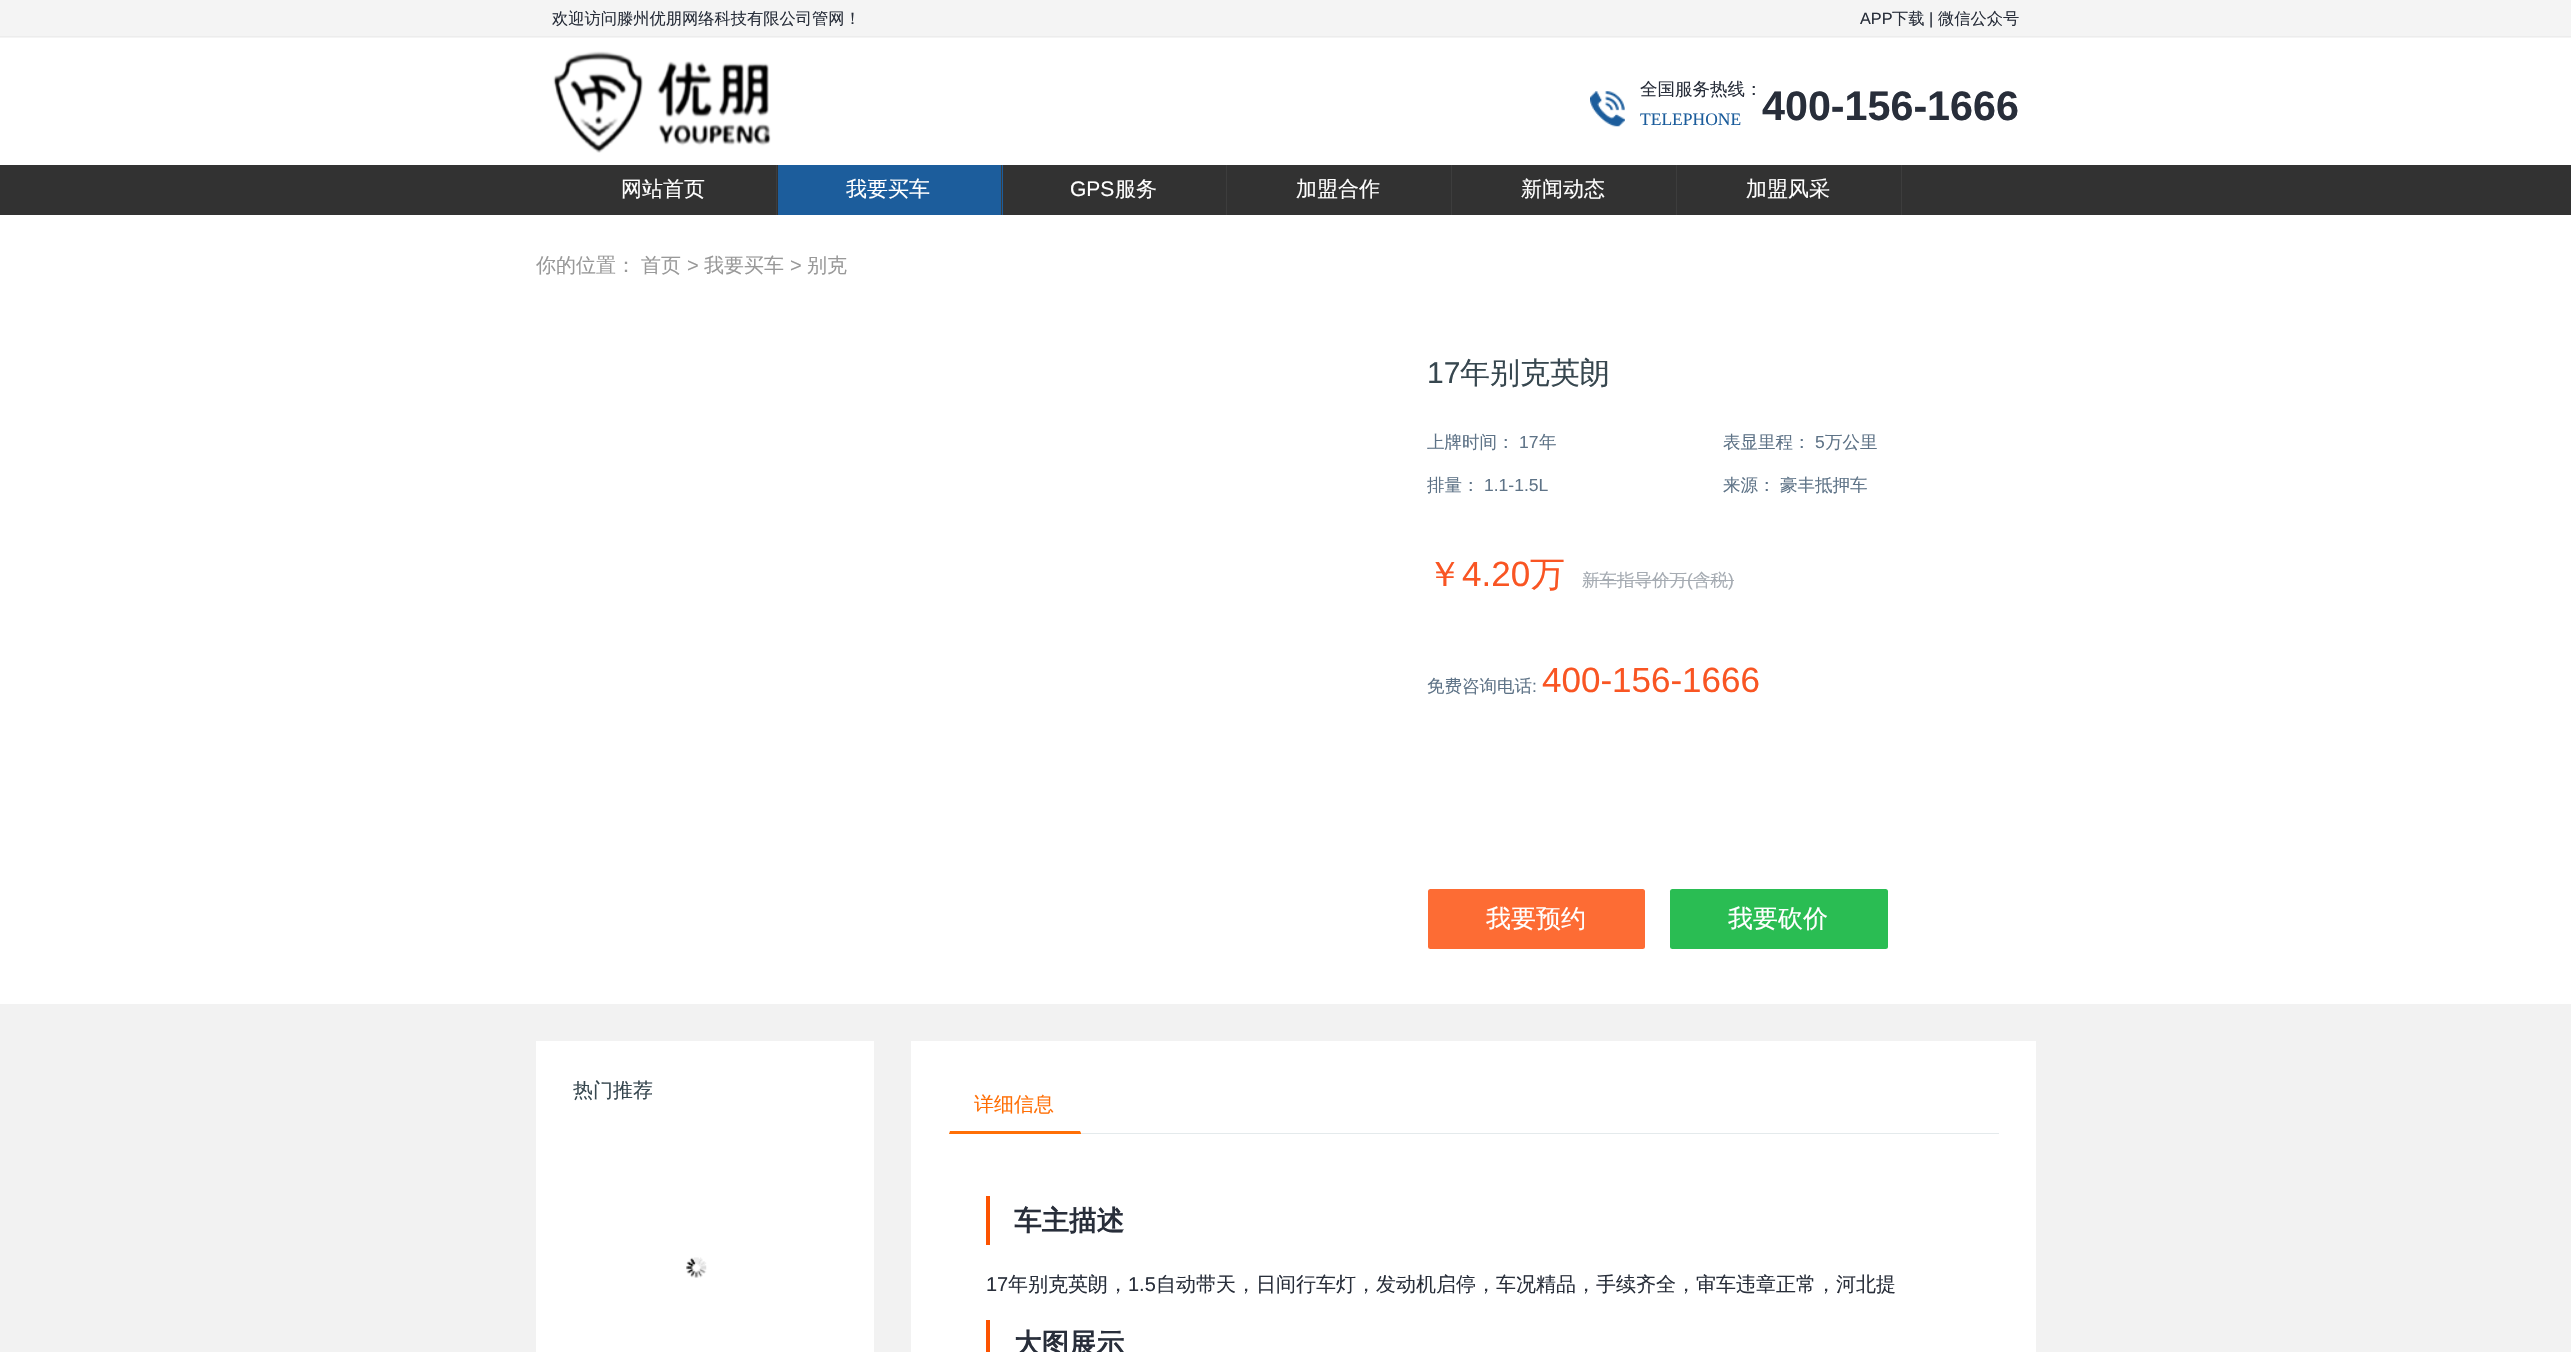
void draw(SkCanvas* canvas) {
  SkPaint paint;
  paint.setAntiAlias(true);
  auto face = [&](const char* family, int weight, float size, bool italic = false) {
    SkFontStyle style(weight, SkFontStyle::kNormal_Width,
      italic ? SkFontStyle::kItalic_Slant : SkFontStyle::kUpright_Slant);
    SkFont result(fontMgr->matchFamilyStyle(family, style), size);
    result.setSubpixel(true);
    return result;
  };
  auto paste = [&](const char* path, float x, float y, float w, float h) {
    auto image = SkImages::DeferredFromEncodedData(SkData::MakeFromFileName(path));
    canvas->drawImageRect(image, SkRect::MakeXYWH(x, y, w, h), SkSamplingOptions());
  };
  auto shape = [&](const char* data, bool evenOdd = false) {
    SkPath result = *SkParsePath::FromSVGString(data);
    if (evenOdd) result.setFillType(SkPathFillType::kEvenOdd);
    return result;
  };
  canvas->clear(0xffffffff);
  paint.setColor(0xfff4f4f4);
  canvas->drawRect(SkRect::MakeXYWH(0, 0, 2571, 38), paint);
  paint.setColor(0xffececec);
  canvas->drawRect(SkRect::MakeXYWH(0, 36, 2571, 1), paint);
  paste("img/1.png", 553, 51, 218, 102);
  paste("img/2.png", 1590, 91, 35, 36);
  {
    const struct { float x, y, w, h; SkColor color; } items[] = {
      {0, 165, 2571, 50, 0xff323232},
      {776, 165, 1, 50, 0xff3d3d3d},
      {778, 165, 225, 50, 0xff1c5d9c},
      {1001, 165, 1, 50, 0xff3d3d3d},
      {1226, 165, 1, 50, 0xff3d3d3d},
      {1451, 165, 1, 50, 0xff3d3d3d},
      {1676, 165, 1, 50, 0xff3d3d3d},
      {1901, 165, 1, 50, 0xff3d3d3d},
      {0, 1004, 2571, 348, 0xfff2f2f2},
      {1583, 580, 151, 1, 0xffa5abb2},
    };
    for (auto [x, y, w, h, color] : items) {
      paint.setColor(color);
      canvas->drawRect(SkRect::MakeXYWH(x, y, w, h), paint);
    }
  }
  paint.setColor(0xfffd6c34);
  canvas->drawRoundRect(SkRect::MakeXYWH(1428, 889, 217, 60), 2.5f, 2.5f, paint);
  paint.setColor(0xff2abd53);
  canvas->drawRoundRect(SkRect::MakeXYWH(1670, 889, 218, 60), 2.5f, 2.5f, paint);
  paint.setColor(0xffffffff);
  canvas->drawRect(SkRect::MakeXYWH(536, 1041, 338, 311), paint);
  paste("img/3.png", 686, 1257, 21, 21);
  canvas->drawRect(SkRect::MakeXYWH(911, 1041, 1125, 311), paint);
  paint.setColor(0xffe4eaec);
  canvas->drawRect(SkRect::MakeXYWH(949, 1133, 1050, 1), paint);
  paint.setColor(0xffff6f06);
  canvas->drawPath(shape("M949 1134L950 1131H1080L1081 1133V1134Z"), paint);
  paint.setColor(0xfffc5300);
  canvas->drawRect(SkRect::MakeXYWH(986, 1196, 4, 49), paint);
  canvas->drawRect(SkRect::MakeXYWH(986, 1320, 4, 32), paint);
  auto f0 = face("WenQuanYi Zen Hei", 500, 16.25f);
  paint.setColor(0xff282e3a);
  canvas->drawString("欢迎访问滕州优朋网络科技有限公司管网！", 552, 24, f0, paint);
  auto f1 = face("Liberation Sans", 400, 16.25f);
  canvas->drawString("APP", 1860, 24, f1, paint);
  canvas->drawString("下载", 1892, 24, f0, paint);
  canvas->drawString("|", 1929, 24, f1, paint);
  canvas->drawString("微信公众号", 1938, 24, f0, paint);
  auto f2 = face("WenQuanYi Zen Hei", 500, 17.5f);
  canvas->drawString("全国服务热线：", 1640, 95, f2, paint);
  auto f3 = face("Liberation Sans", 700, 41.25f);
  canvas->drawString("400-156-1666", 1762, 120, f3, paint);
  auto f4 = face("Liberation Serif", 400, 17.5f);
  paint.setColor(0xff1c5d9c);
  canvas->drawString("TELEPHONE", 1640, 125, f4, paint);
  auto f5 = face("WenQuanYi Zen Hei", 500, 21);
  paint.setColor(0xffffffff);
  canvas->drawString("网站首页", 621, 196, f5, paint);
  canvas->drawString("我要买车", 846, 196, f5, paint);
  auto f6 = face("Liberation Sans", 400, 21);
  canvas->drawString("GPS", 1070, 196, f6, paint);
  {
    const struct { const char* s; float x, y; } items[] = {
      {"服务", 1115, 196},
      {"加盟合作", 1296, 196},
      {"新闻动态", 1521, 196},
      {"加盟风采", 1746, 196},
    };
    for (auto [s, x, y] : items) {
      canvas->drawString(s, x, y, f5, paint);
    }
  }
  auto f7 = face("WenQuanYi Zen Hei", 500, 20);
  paint.setColor(0xff999999);
  canvas->drawString("你的位置：", 536, 272, f7, paint);
  canvas->drawString("首页", 641, 272, f7, paint);
  auto f8 = face("Liberation Sans", 400, 20);
  canvas->drawString(">", 687, 272, f8, paint);
  canvas->drawString("我要买车", 704, 272, f7, paint);
  canvas->drawString(">", 790, 272, f8, paint);
  canvas->drawString("别克", 807, 272, f7, paint);
  auto f9 = face("Liberation Sans", 400, 30);
  paint.setColor(0xff37474f);
  canvas->drawString("17", 1427, 383, f9, paint);
  auto f10 = face("WenQuanYi Zen Hei", 500, 30);
  canvas->drawString("年别克英朗", 1460, 383, f10, paint);
  paint.setColor(0xff5e7387);
  canvas->drawString("上牌时间：", 1427, 448, f2, paint);
  auto f11 = face("Liberation Sans", 400, 17.5f);
  canvas->drawString("17", 1519, 448, f11, paint);
  canvas->drawString("年", 1539, 448, f2, paint);
  canvas->drawString("表显里程：", 1723, 448, f2, paint);
  canvas->drawString("5", 1815, 448, f11, paint);
  canvas->drawString("万公里", 1825, 448, f2, paint);
  canvas->drawString("排量：", 1427, 491, f2, paint);
  canvas->drawString("1.1-1.5L", 1484, 491, f11, paint);
  canvas->drawString("来源：", 1723, 491, f2, paint);
  canvas->drawString("豪丰抵押车", 1780, 491, f2, paint);
  auto f12 = face("WenQuanYi Zen Hei", 500, 35);
  paint.setColor(0xfff95523);
  canvas->drawString("￥", 1427, 586, f12, paint);
  auto f13 = face("Liberation Sans", 400, 35);
  canvas->drawString("4.20", 1462, 586, f13, paint);
  canvas->drawString("万", 1530, 586, f12, paint);
  paint.setColor(0xffa5abb2);
  canvas->drawString("新车指导价万", 1582, 586, f2, paint);
  canvas->drawString("(", 1687, 586, f11, paint);
  canvas->drawString("含税", 1693, 586, f2, paint);
  canvas->drawString(")", 1728, 586, f11, paint);
  paint.setColor(0xff5e7387);
  canvas->drawString("免费咨询电话", 1427, 692, f2, paint);
  canvas->drawString(":", 1532, 692, f11, paint);
  paint.setColor(0xfff95523);
  canvas->drawString("400-156-1666", 1542, 692, f13, paint);
  auto f14 = face("WenQuanYi Zen Hei", 500, 25);
  paint.setColor(0xffffffff);
  canvas->drawString("我要预约", 1486, 927, f14, paint);
  canvas->drawString("我要砍价", 1728, 927, f14, paint);
  paint.setColor(0xff37474f);
  canvas->drawString("热门推荐", 573, 1097, f7, paint);
  paint.setColor(0xffff6f06);
  canvas->drawString("详细信息", 974, 1111, f7, paint);
  auto f15 = face("WenQuanYi Zen Hei", 700, 27.5f);
  paint.setColor(0xff282e3a);
  canvas->drawString("车主描述", 1014, 1230, f15, paint);
  canvas->drawString("17", 986, 1291, f8, paint);
  canvas->drawString("年别克英朗，", 1008, 1291, f7, paint);
  canvas->drawString("1.5", 1128, 1291, f8, paint);
  canvas->drawString("自动带天，日间行车灯，发动机启停，车况精品，手续齐全，审车违章正常，河北提", 1156, 1291, f7, paint);
  canvas->drawString("大图展示", 1014, 1353, f15, paint);
}
